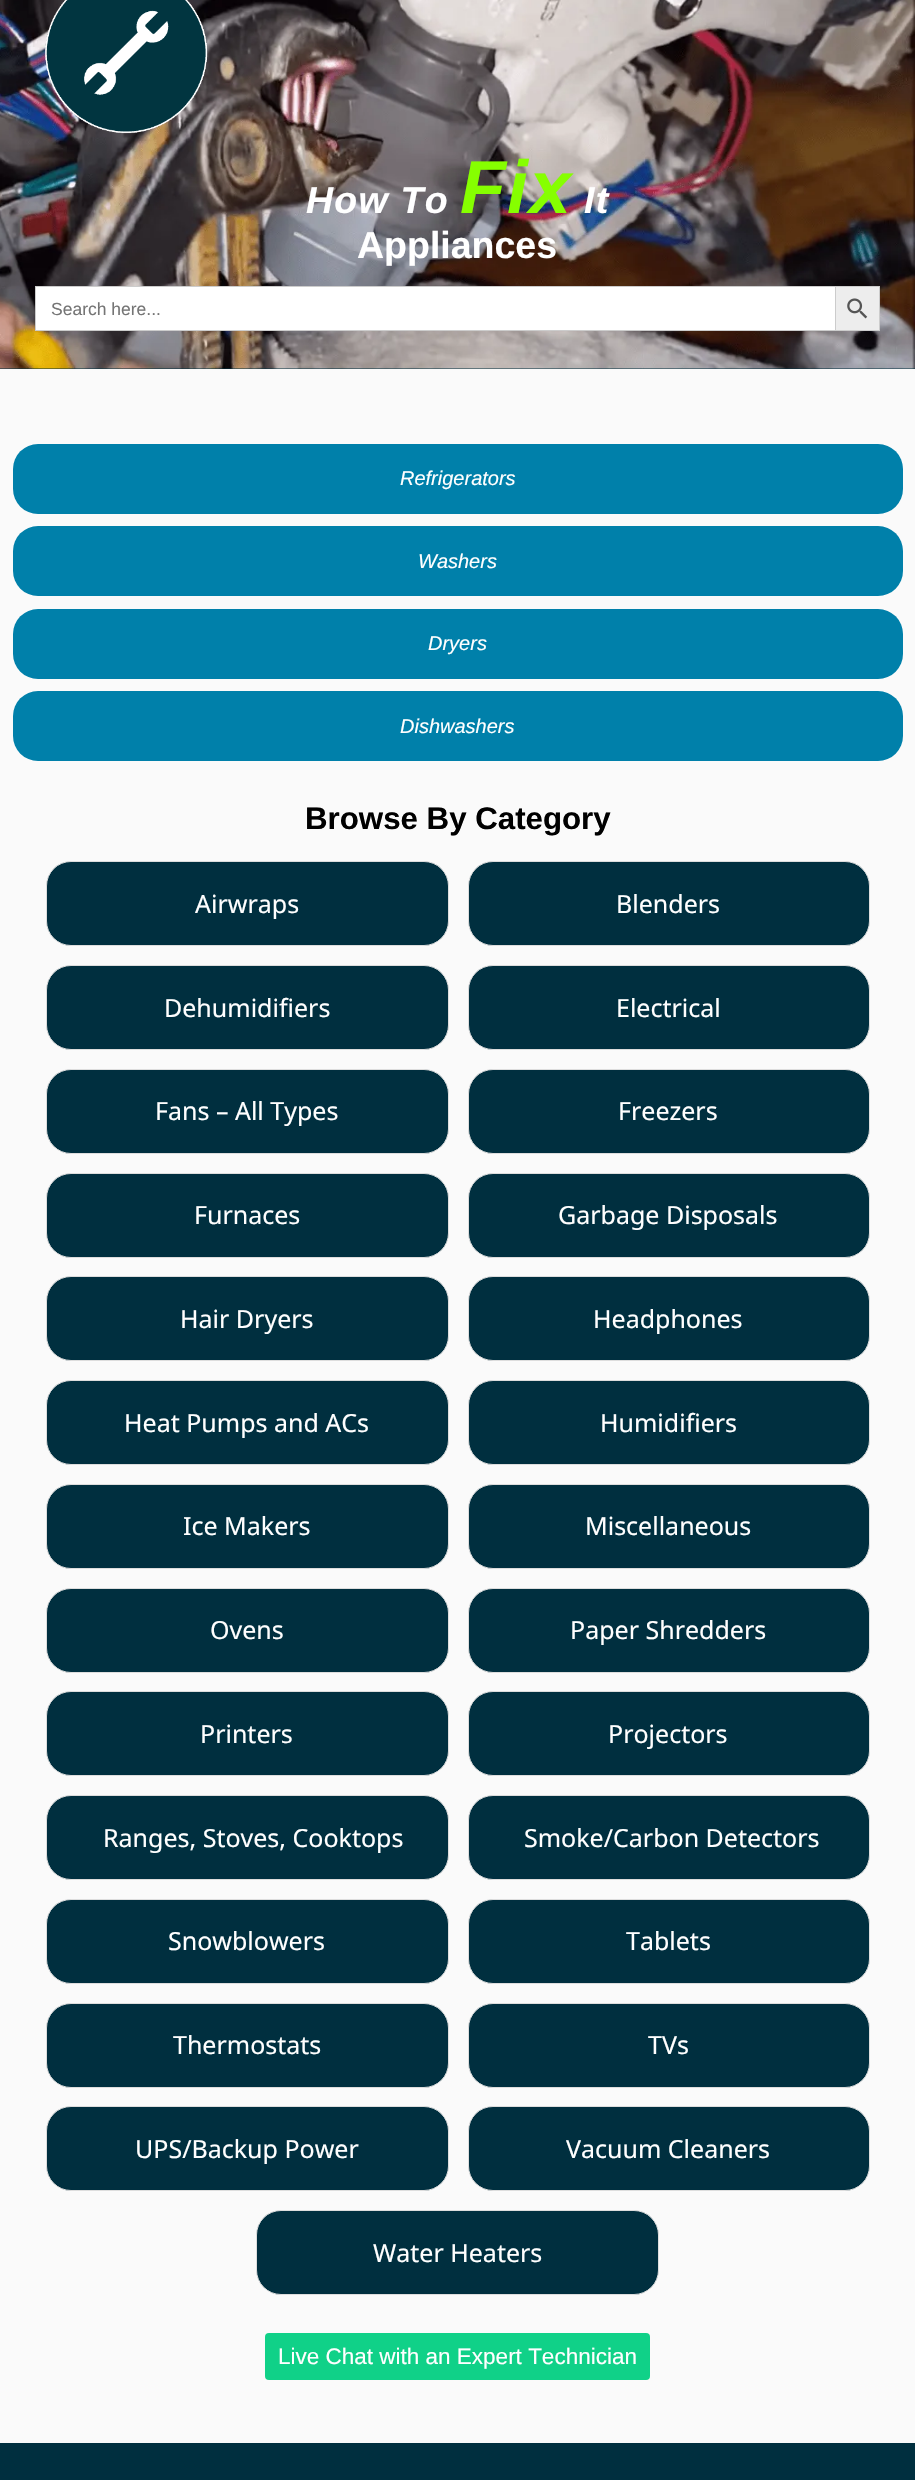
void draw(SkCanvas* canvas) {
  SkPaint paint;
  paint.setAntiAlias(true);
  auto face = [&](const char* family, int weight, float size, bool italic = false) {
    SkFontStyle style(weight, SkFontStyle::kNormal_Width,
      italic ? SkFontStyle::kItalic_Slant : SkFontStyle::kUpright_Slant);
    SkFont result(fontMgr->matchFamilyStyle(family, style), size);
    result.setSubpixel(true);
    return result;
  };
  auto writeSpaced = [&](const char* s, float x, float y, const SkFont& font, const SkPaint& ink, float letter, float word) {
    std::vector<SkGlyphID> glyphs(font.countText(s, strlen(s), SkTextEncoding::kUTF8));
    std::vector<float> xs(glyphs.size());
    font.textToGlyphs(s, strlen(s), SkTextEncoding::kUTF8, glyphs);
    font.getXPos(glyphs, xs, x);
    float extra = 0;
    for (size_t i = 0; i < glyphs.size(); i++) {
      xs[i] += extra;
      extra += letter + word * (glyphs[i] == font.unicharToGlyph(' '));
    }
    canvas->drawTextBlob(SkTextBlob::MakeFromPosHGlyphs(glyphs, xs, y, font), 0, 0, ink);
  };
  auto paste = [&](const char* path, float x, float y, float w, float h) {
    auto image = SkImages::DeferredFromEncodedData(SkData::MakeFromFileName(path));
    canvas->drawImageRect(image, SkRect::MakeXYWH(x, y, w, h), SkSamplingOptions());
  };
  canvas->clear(0xfffafafa);
  paint.setColor(0xff002f3f);
  canvas->drawRect(SkRect::MakeXYWH(0, 368, 915, 1), paint);
  paste("img/1.png", 0, 0, 915, 369);
  paste("img/2.png", 45, 0, 163, 134);
  {
    const struct { float x, y, w, h; SkColor color; } items[] = {
      {36, 287, 799, 43, 0xffffffff},
      {35, 286, 800, 1, 0xffcccccc},
      {35, 330, 800, 1, 0xffcccccc},
      {35, 286, 1, 45, 0xffcccccc},
    };
    for (auto [x, y, w, h, color] : items) {
      paint.setColor(color);
      canvas->drawRect(SkRect::MakeXYWH(x, y, w, h), paint);
    }
  }
  paint.setColor(0xffededed);
  canvas->drawRect(SkRect::MakeXYWH(835.5f, 286.5f, 44, 44), paint);
  paint.setStroke(true);
  paint.setStrokeWidth(1);
  paint.setColor(0xffcccccc);
  canvas->drawRect(SkRect::MakeXYWH(835.5f, 286.5f, 44, 44), paint);
  paste("img/3.png", 847, 298, 21, 21);
  paint.setStroke(false);
  paint.setColor(0xff0080aa);
  canvas->drawRoundRect(SkRect::MakeXYWH(13, 444, 890, 70), 25, 25, paint);
  canvas->drawRoundRect(SkRect::MakeXYWH(13, 526, 890, 70), 25, 25, paint);
  canvas->drawRoundRect(SkRect::MakeXYWH(13, 609, 890, 70), 25, 25, paint);
  canvas->drawRoundRect(SkRect::MakeXYWH(13, 691, 890, 70), 25, 25, paint);
  paint.setColor(0xff002f3f);
  canvas->drawRoundRect(SkRect::MakeXYWH(46.5f, 861.5f, 402, 84), 24.5f, 24.5f, paint);
  paint.setStroke(true);
  paint.setColor(0xffdddddd);
  canvas->drawRoundRect(SkRect::MakeXYWH(46.5f, 861.5f, 402, 84), 24.5f, 24.5f, paint);
  paint.setStroke(false);
  paint.setColor(0xff002f3f);
  canvas->drawRoundRect(SkRect::MakeXYWH(468.5f, 861.5f, 401, 84), 24.5f, 24.5f, paint);
  paint.setStroke(true);
  paint.setColor(0xffdddddd);
  canvas->drawRoundRect(SkRect::MakeXYWH(468.5f, 861.5f, 401, 84), 24.5f, 24.5f, paint);
  paint.setStroke(false);
  paint.setColor(0xff002f3f);
  canvas->drawRoundRect(SkRect::MakeXYWH(46.5f, 965.5f, 402, 84), 24.5f, 24.5f, paint);
  paint.setStroke(true);
  paint.setColor(0xffdddddd);
  canvas->drawRoundRect(SkRect::MakeXYWH(46.5f, 965.5f, 402, 84), 24.5f, 24.5f, paint);
  paint.setStroke(false);
  paint.setColor(0xff002f3f);
  canvas->drawRoundRect(SkRect::MakeXYWH(468.5f, 965.5f, 401, 84), 24.5f, 24.5f, paint);
  paint.setStroke(true);
  paint.setColor(0xffdddddd);
  canvas->drawRoundRect(SkRect::MakeXYWH(468.5f, 965.5f, 401, 84), 24.5f, 24.5f, paint);
  paint.setStroke(false);
  paint.setColor(0xff002f3f);
  canvas->drawRoundRect(SkRect::MakeXYWH(46.5f, 1069.5f, 402, 84), 24.5f, 24.5f, paint);
  paint.setStroke(true);
  paint.setColor(0xffdddddd);
  canvas->drawRoundRect(SkRect::MakeXYWH(46.5f, 1069.5f, 402, 84), 24.5f, 24.5f, paint);
  paint.setStroke(false);
  paint.setColor(0xff002f3f);
  canvas->drawRoundRect(SkRect::MakeXYWH(468.5f, 1069.5f, 401, 84), 24.5f, 24.5f, paint);
  paint.setStroke(true);
  paint.setColor(0xffdddddd);
  canvas->drawRoundRect(SkRect::MakeXYWH(468.5f, 1069.5f, 401, 84), 24.5f, 24.5f, paint);
  paint.setStroke(false);
  paint.setColor(0xff002f3f);
  canvas->drawRoundRect(SkRect::MakeXYWH(46.5f, 1173.5f, 402, 84), 24.5f, 24.5f, paint);
  paint.setStroke(true);
  paint.setColor(0xffdddddd);
  canvas->drawRoundRect(SkRect::MakeXYWH(46.5f, 1173.5f, 402, 84), 24.5f, 24.5f, paint);
  paint.setStroke(false);
  paint.setColor(0xff002f3f);
  canvas->drawRoundRect(SkRect::MakeXYWH(468.5f, 1173.5f, 401, 84), 24.5f, 24.5f, paint);
  paint.setStroke(true);
  paint.setColor(0xffdddddd);
  canvas->drawRoundRect(SkRect::MakeXYWH(468.5f, 1173.5f, 401, 84), 24.5f, 24.5f, paint);
  paint.setStroke(false);
  paint.setColor(0xff002f3f);
  canvas->drawRoundRect(SkRect::MakeXYWH(46.5f, 1276.5f, 402, 84), 24.5f, 24.5f, paint);
  paint.setStroke(true);
  paint.setColor(0xffdddddd);
  canvas->drawRoundRect(SkRect::MakeXYWH(46.5f, 1276.5f, 402, 84), 24.5f, 24.5f, paint);
  paint.setStroke(false);
  paint.setColor(0xff002f3f);
  canvas->drawRoundRect(SkRect::MakeXYWH(468.5f, 1276.5f, 401, 84), 24.5f, 24.5f, paint);
  paint.setStroke(true);
  paint.setColor(0xffdddddd);
  canvas->drawRoundRect(SkRect::MakeXYWH(468.5f, 1276.5f, 401, 84), 24.5f, 24.5f, paint);
  paint.setStroke(false);
  paint.setColor(0xff002f3f);
  canvas->drawRoundRect(SkRect::MakeXYWH(46.5f, 1380.5f, 402, 84), 24.5f, 24.5f, paint);
  paint.setStroke(true);
  paint.setColor(0xffdddddd);
  canvas->drawRoundRect(SkRect::MakeXYWH(46.5f, 1380.5f, 402, 84), 24.5f, 24.5f, paint);
  paint.setStroke(false);
  paint.setColor(0xff002f3f);
  canvas->drawRoundRect(SkRect::MakeXYWH(468.5f, 1380.5f, 401, 84), 24.5f, 24.5f, paint);
  paint.setStroke(true);
  paint.setColor(0xffdddddd);
  canvas->drawRoundRect(SkRect::MakeXYWH(468.5f, 1380.5f, 401, 84), 24.5f, 24.5f, paint);
  paint.setStroke(false);
  paint.setColor(0xff002f3f);
  canvas->drawRoundRect(SkRect::MakeXYWH(46.5f, 1484.5f, 402, 84), 24.5f, 24.5f, paint);
  paint.setStroke(true);
  paint.setColor(0xffdddddd);
  canvas->drawRoundRect(SkRect::MakeXYWH(46.5f, 1484.5f, 402, 84), 24.5f, 24.5f, paint);
  paint.setStroke(false);
  paint.setColor(0xff002f3f);
  canvas->drawRoundRect(SkRect::MakeXYWH(468.5f, 1484.5f, 401, 84), 24.5f, 24.5f, paint);
  paint.setStroke(true);
  paint.setColor(0xffdddddd);
  canvas->drawRoundRect(SkRect::MakeXYWH(468.5f, 1484.5f, 401, 84), 24.5f, 24.5f, paint);
  paint.setStroke(false);
  paint.setColor(0xff002f3f);
  canvas->drawRoundRect(SkRect::MakeXYWH(46.5f, 1588.5f, 402, 84), 24.5f, 24.5f, paint);
  paint.setStroke(true);
  paint.setColor(0xffdddddd);
  canvas->drawRoundRect(SkRect::MakeXYWH(46.5f, 1588.5f, 402, 84), 24.5f, 24.5f, paint);
  paint.setStroke(false);
  paint.setColor(0xff002f3f);
  canvas->drawRoundRect(SkRect::MakeXYWH(468.5f, 1588.5f, 401, 84), 24.5f, 24.5f, paint);
  paint.setStroke(true);
  paint.setColor(0xffdddddd);
  canvas->drawRoundRect(SkRect::MakeXYWH(468.5f, 1588.5f, 401, 84), 24.5f, 24.5f, paint);
  paint.setStroke(false);
  paint.setColor(0xff002f3f);
  canvas->drawRoundRect(SkRect::MakeXYWH(46.5f, 1691.5f, 402, 84), 24.5f, 24.5f, paint);
  paint.setStroke(true);
  paint.setColor(0xffdddddd);
  canvas->drawRoundRect(SkRect::MakeXYWH(46.5f, 1691.5f, 402, 84), 24.5f, 24.5f, paint);
  paint.setStroke(false);
  paint.setColor(0xff002f3f);
  canvas->drawRoundRect(SkRect::MakeXYWH(468.5f, 1691.5f, 401, 84), 24.5f, 24.5f, paint);
  paint.setStroke(true);
  paint.setColor(0xffdddddd);
  canvas->drawRoundRect(SkRect::MakeXYWH(468.5f, 1691.5f, 401, 84), 24.5f, 24.5f, paint);
  paint.setStroke(false);
  paint.setColor(0xff002f3f);
  canvas->drawRoundRect(SkRect::MakeXYWH(46.5f, 1795.5f, 402, 84), 24.5f, 24.5f, paint);
  paint.setStroke(true);
  paint.setColor(0xffdddddd);
  canvas->drawRoundRect(SkRect::MakeXYWH(46.5f, 1795.5f, 402, 84), 24.5f, 24.5f, paint);
  paint.setStroke(false);
  paint.setColor(0xff002f3f);
  canvas->drawRoundRect(SkRect::MakeXYWH(468.5f, 1795.5f, 401, 84), 24.5f, 24.5f, paint);
  paint.setStroke(true);
  paint.setColor(0xffdddddd);
  canvas->drawRoundRect(SkRect::MakeXYWH(468.5f, 1795.5f, 401, 84), 24.5f, 24.5f, paint);
  paint.setStroke(false);
  paint.setColor(0xff002f3f);
  canvas->drawRoundRect(SkRect::MakeXYWH(46.5f, 1899.5f, 402, 84), 24.5f, 24.5f, paint);
  paint.setStroke(true);
  paint.setColor(0xffdddddd);
  canvas->drawRoundRect(SkRect::MakeXYWH(46.5f, 1899.5f, 402, 84), 24.5f, 24.5f, paint);
  paint.setStroke(false);
  paint.setColor(0xff002f3f);
  canvas->drawRoundRect(SkRect::MakeXYWH(468.5f, 1899.5f, 401, 84), 24.5f, 24.5f, paint);
  paint.setStroke(true);
  paint.setColor(0xffdddddd);
  canvas->drawRoundRect(SkRect::MakeXYWH(468.5f, 1899.5f, 401, 84), 24.5f, 24.5f, paint);
  paint.setStroke(false);
  paint.setColor(0xff002f3f);
  canvas->drawRoundRect(SkRect::MakeXYWH(46.5f, 2003.5f, 402, 84), 24.5f, 24.5f, paint);
  paint.setStroke(true);
  paint.setColor(0xffdddddd);
  canvas->drawRoundRect(SkRect::MakeXYWH(46.5f, 2003.5f, 402, 84), 24.5f, 24.5f, paint);
  paint.setStroke(false);
  paint.setColor(0xff002f3f);
  canvas->drawRoundRect(SkRect::MakeXYWH(468.5f, 2003.5f, 401, 84), 24.5f, 24.5f, paint);
  paint.setStroke(true);
  paint.setColor(0xffdddddd);
  canvas->drawRoundRect(SkRect::MakeXYWH(468.5f, 2003.5f, 401, 84), 24.5f, 24.5f, paint);
  paint.setStroke(false);
  paint.setColor(0xff002f3f);
  canvas->drawRoundRect(SkRect::MakeXYWH(46.5f, 2106.5f, 402, 84), 24.5f, 24.5f, paint);
  paint.setStroke(true);
  paint.setColor(0xffdddddd);
  canvas->drawRoundRect(SkRect::MakeXYWH(46.5f, 2106.5f, 402, 84), 24.5f, 24.5f, paint);
  paint.setStroke(false);
  paint.setColor(0xff002f3f);
  canvas->drawRoundRect(SkRect::MakeXYWH(468.5f, 2106.5f, 401, 84), 24.5f, 24.5f, paint);
  paint.setStroke(true);
  paint.setColor(0xffdddddd);
  canvas->drawRoundRect(SkRect::MakeXYWH(468.5f, 2106.5f, 401, 84), 24.5f, 24.5f, paint);
  paint.setStroke(false);
  paint.setColor(0xff002f3f);
  canvas->drawRoundRect(SkRect::MakeXYWH(256.5f, 2210.5f, 402, 84), 24.5f, 24.5f, paint);
  paint.setStroke(true);
  paint.setColor(0xffdddddd);
  canvas->drawRoundRect(SkRect::MakeXYWH(256.5f, 2210.5f, 402, 84), 24.5f, 24.5f, paint);
  paint.setStroke(false);
  paint.setColor(0xff10d188);
  canvas->drawRoundRect(SkRect::MakeXYWH(265, 2333, 385, 47), 4, 4, paint);
  paint.setColor(0xff002f3f);
  canvas->drawRect(SkRect::MakeXYWH(0, 2443, 915, 37), paint);
  auto f0 = face("Liberation Sans", 700, 37.5f, true);
  paint.setColor(0xffffffff);
  writeSpaced("How To", 306, 213, f0, paint, 1.25f, 0);
  auto f1 = face("Liberation Sans", 700, 75, true);
  paint.setColor(0xff86ff00);
  writeSpaced("Fix", 460, 213, f1, paint, 1.25f, 0);
  paint.setColor(0xffffffff);
  writeSpaced("It", 584, 213, f0, paint, 1.25f, 0);
  auto f2 = face("Liberation Sans", 700, 37.5f);
  canvas->drawString("Appliances", 357, 258, f2, paint);
  auto f3 = face("Liberation Sans", 400, 17.5f);
  paint.setColor(0xff757575);
  canvas->drawString("Search here...", 51, 315, f3, paint);
  auto f4 = face("Liberation Sans", 400, 20, true);
  paint.setColor(0xffffffff);
  {
    const struct { const char* s; float x, y; } items[] = {
      {"Refrigerators", 400, 485},
      {"Washers", 418, 568},
      {"Dryers", 428, 650},
      {"Dishwashers", 400, 733},
    };
    for (auto [s, x, y] : items) {
      canvas->drawString(s, x, y, f4, paint);
    }
  }
  auto f5 = face("Liberation Sans", 700, 31.25f);
  paint.setColor(0xff000000);
  canvas->drawString("Browse By Category", 305, 829, f5, paint);
  auto f6 = face("Noto Sans", 400, 25);
  paint.setColor(0xffffffff);
  {
    const struct { const char* s; float x, y; } items[] = {
      {"Airwraps", 195, 913},
      {"Blenders", 616, 913},
      {"Dehumidifiers", 164, 1017},
      {"Electrical", 616, 1017},
      {"Fans – All Types", 155, 1120},
      {"Freezers", 618, 1120},
      {"Furnaces", 194, 1224},
      {"Garbage Disposals", 558, 1224},
      {"Hair Dryers", 180, 1328},
      {"Headphones", 593, 1328},
      {"Heat Pumps and ACs", 124, 1432},
      {"Humidifiers", 600, 1432},
      {"Ice Makers", 183, 1535},
      {"Miscellaneous", 585, 1535},
      {"Ovens", 210, 1639},
      {"Paper Shredders", 570, 1639},
      {"Printers", 200, 1743},
      {"Projectors", 608, 1743},
      {"Ranges, Stoves, Cooktops", 103, 1847},
      {"Smoke/Carbon Detectors", 524, 1847},
      {"Snowblowers", 168, 1950},
      {"Tablets", 626, 1950},
      {"Thermostats", 173, 2054},
      {"TVs", 648, 2054},
      {"UPS/Backup Power", 135, 2158},
      {"Vacuum Cleaners", 566, 2158},
      {"Water Heaters", 373, 2262},
    };
    for (auto [s, x, y] : items) {
      canvas->drawString(s, x, y, f6, paint);
    }
  }
  auto f7 = face("Liberation Sans", 400, 22.5f);
  canvas->drawString("Live Chat with an Expert Technician", 278, 2364, f7, paint);
}
